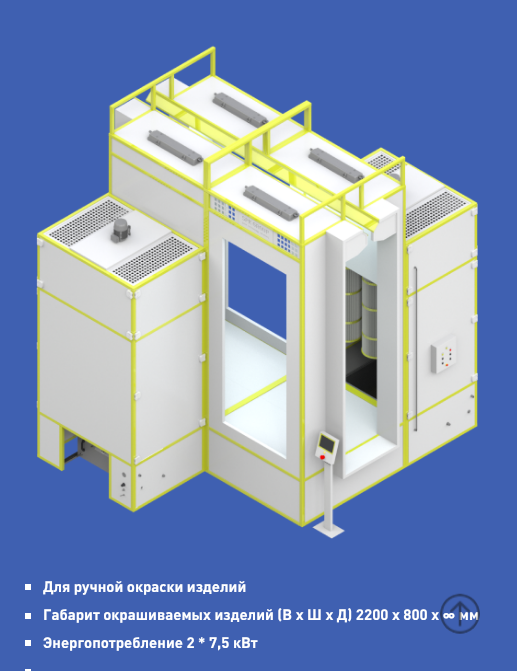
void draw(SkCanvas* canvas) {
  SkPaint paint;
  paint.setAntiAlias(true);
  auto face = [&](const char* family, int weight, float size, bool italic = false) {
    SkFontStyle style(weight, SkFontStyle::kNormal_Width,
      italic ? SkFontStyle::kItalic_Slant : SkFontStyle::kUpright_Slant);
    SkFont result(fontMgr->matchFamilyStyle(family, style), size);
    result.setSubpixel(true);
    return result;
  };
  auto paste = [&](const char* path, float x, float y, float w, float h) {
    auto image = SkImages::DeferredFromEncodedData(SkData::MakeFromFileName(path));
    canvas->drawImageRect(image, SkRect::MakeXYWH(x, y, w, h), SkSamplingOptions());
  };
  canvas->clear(0xff3f60b1);
  paste("img/1.png", 36, 45, 442, 494);
  {
    const struct { float x, y, w, h; SkColor color; } items[] = {
      {25, 584, 6, 6, 0xffffffff},
      {25, 613, 6, 6, 0xffffffff},
      {25, 640, 6, 6, 0xffffffff},
      {25, 669, 6, 2, 0xffffffff},
    };
    for (auto [x, y, w, h, color] : items) {
      paint.setColor(color);
      canvas->drawRect(SkRect::MakeXYWH(x, y, w, h), paint);
    }
  }
  auto f0 = face("DIN", 700, 15);
  {
    const struct { const char* s; float x, y; } items[] = {
      {"Для ручной окраски изделий", 43, 592},
      {"Габарит окрашиваемых изделий (В х Ш х Д) 2200 х 800 х ∞ мм", 43, 620},
      {"Энергопотребление 2 * 7,5 кВт", 43, 648},
    };
    for (auto [s, x, y] : items) {
      canvas->drawString(s, x, y, f0, paint);
    }
  }
  paste("img/2.png", 440, 593, 40, 41);
}
